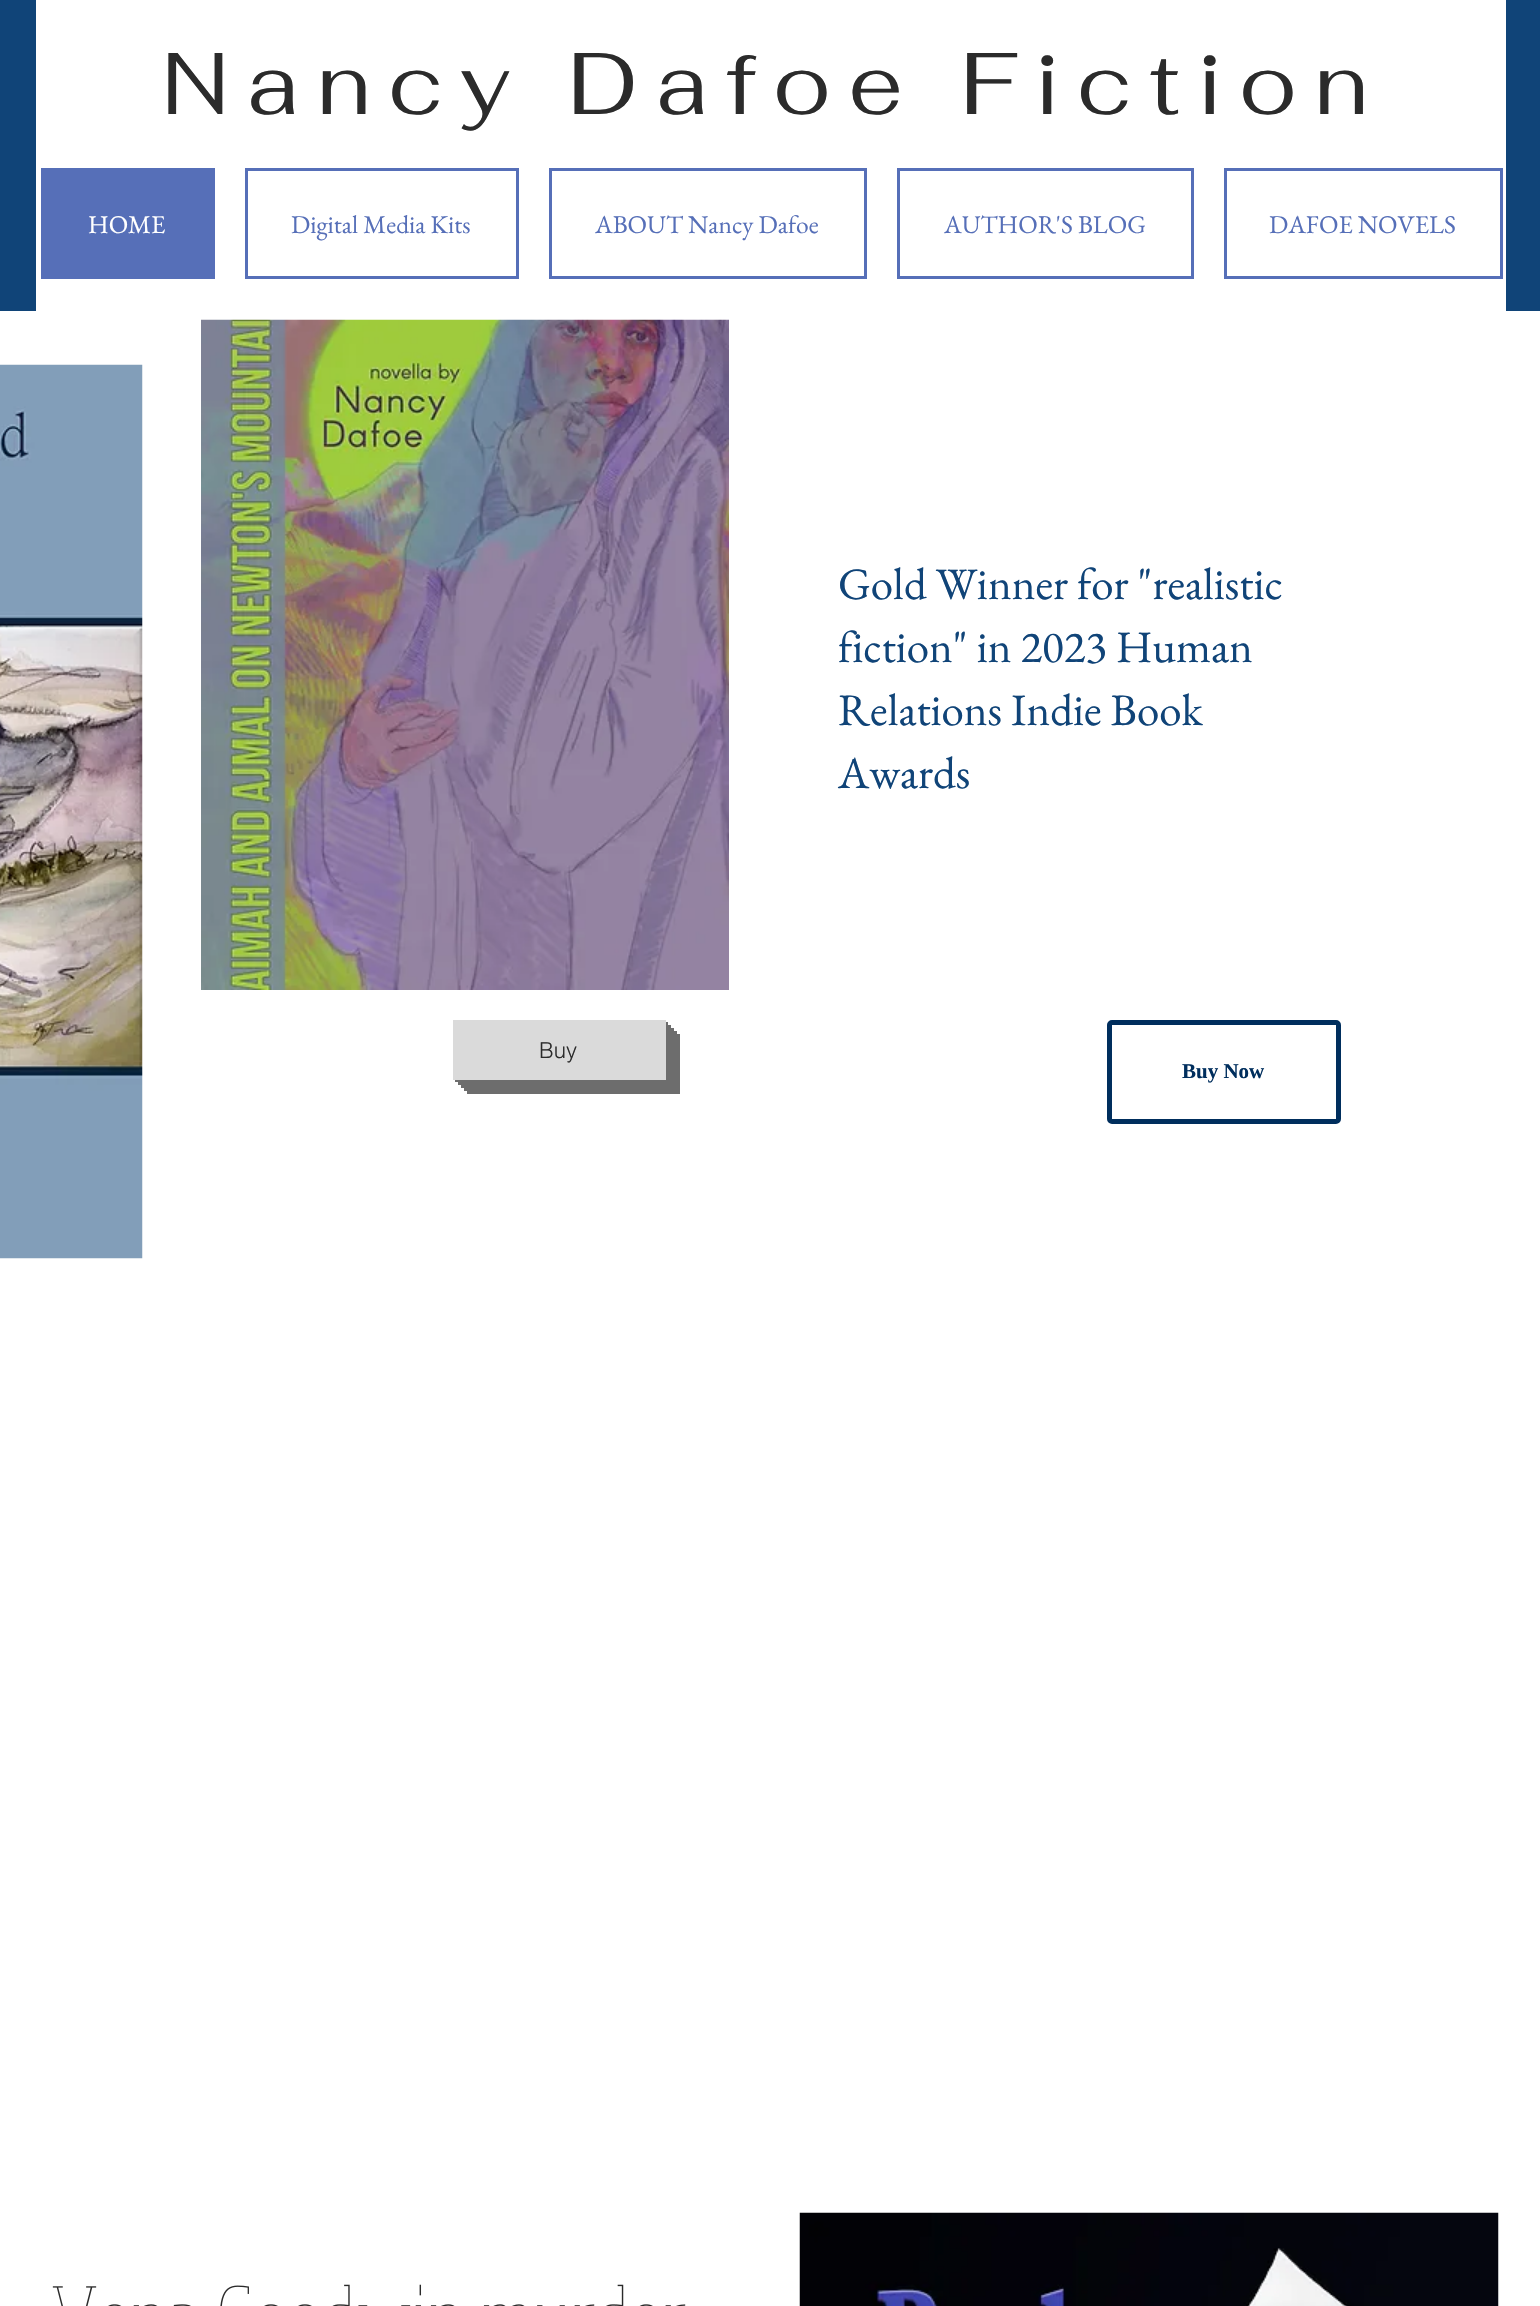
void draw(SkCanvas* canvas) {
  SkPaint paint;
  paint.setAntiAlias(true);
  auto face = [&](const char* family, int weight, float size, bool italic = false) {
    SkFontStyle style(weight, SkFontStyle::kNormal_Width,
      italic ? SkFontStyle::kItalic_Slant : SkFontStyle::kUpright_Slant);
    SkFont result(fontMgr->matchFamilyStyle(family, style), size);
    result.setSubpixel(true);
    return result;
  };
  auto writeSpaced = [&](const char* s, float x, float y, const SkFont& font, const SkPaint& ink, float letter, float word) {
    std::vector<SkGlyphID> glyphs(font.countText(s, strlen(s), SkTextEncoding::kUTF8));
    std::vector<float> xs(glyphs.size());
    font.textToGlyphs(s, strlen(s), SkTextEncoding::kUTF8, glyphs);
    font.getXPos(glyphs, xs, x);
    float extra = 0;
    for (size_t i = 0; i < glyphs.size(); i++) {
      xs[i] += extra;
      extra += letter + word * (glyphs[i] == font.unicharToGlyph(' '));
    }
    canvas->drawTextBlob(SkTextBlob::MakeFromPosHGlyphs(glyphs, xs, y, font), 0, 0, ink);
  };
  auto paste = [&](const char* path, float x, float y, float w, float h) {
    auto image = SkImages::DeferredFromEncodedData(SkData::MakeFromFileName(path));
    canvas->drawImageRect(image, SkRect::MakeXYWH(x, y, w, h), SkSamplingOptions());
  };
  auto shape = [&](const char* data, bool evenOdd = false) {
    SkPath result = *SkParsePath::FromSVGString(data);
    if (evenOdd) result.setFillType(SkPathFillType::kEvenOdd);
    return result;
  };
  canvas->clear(0xffffffff);
  {
    const struct { float x, y, w, h; SkColor color; } items[] = {
      {0, 0, 1540, 311, 0xff104478},
      {36, 0, 1470, 311, 0xffffffff},
      {41, 168, 174, 111, 0xff566fb8},
    };
    for (auto [x, y, w, h, color] : items) {
      paint.setColor(color);
      canvas->drawRect(SkRect::MakeXYWH(x, y, w, h), paint);
    }
  }
  paint.setStroke(true);
  paint.setStrokeWidth(3);
  canvas->drawRect(SkRect::MakeXYWH(246.5f, 169.5f, 271, 108), paint);
  canvas->drawRect(SkRect::MakeXYWH(550.5f, 169.5f, 315, 108), paint);
  canvas->drawRect(SkRect::MakeXYWH(898.5f, 169.5f, 294, 108), paint);
  canvas->drawRect(SkRect::MakeXYWH(1225.5f, 169.5f, 276, 108), paint);
  paste("img/1.png", 0, 364, 143, 895);
  paste("img/2.png", 201, 319, 528, 671);
  paint.setStroke(false);
  paint.setColor(0xff6d6d6d);
  canvas->drawPath(shape("M467 1080V1094H680V1034H666V1080Z"), paint);
  canvas->drawPath(shape("M464 1080V1091H677V1031H666V1080Z"), paint);
  canvas->drawPath(shape("M461 1080V1088H674V1028H666V1080Z"), paint);
  canvas->drawPath(shape("M458 1080V1085H671V1025H666V1080Z"), paint);
  canvas->drawPath(shape("M455 1080V1082H668V1022H666V1080Z"), paint);
  paint.setColor(0xffdadada);
  canvas->drawRect(SkRect::MakeXYWH(453, 1020, 213, 60), paint);
  paint.setStroke(true);
  paint.setStrokeWidth(5);
  paint.setColor(0xff002e5d);
  canvas->drawRoundRect(SkRect::MakeXYWH(1109.5f, 1022.5f, 229, 99), 2.5f, 2.5f, paint);
  paste("img/3.png", 52, 2284, 634, 22);
  paste("img/4.png", 799, 2212, 700, 94);
  auto f0 = face("Fahkwang", 400, 87);
  paint.setStroke(false);
  paint.setColor(0xff2b2b2b);
  writeSpaced("Nancy Dafoe Fiction", 162, 114, f0, paint, 17.4f, 0);
  auto f1 = face("EB Garamond", 400, 25.5f);
  paint.setColor(0xffffffff);
  canvas->drawString("HOME", 88, 233, f1, paint);
  paint.setColor(0xff566fb8);
  {
    const struct { const char* s; float x, y; } items[] = {
      {"Digital Media Kits", 291, 233},
      {"ABOUT Nancy Dafoe", 595, 233},
      {"AUTHOR'S BLOG", 944, 233},
      {"DAFOE NOVELS", 1269, 233},
    };
    for (auto [s, x, y] : items) {
      canvas->drawString(s, x, y, f1, paint);
    }
  }
  auto f2 = face("EB Garamond", 400, 45);
  paint.setColor(0xff104478);
  {
    const struct { const char* s; float x, y; } items[] = {
      {"Gold Winner for \"realistic", 838, 599},
      {"fiction\" in 2023 Human", 838, 662},
      {"Relations Indie Book", 838, 725},
      {"Awards", 838, 788},
    };
    for (auto [s, x, y] : items) {
      canvas->drawString(s, x, y, f2, paint);
    }
  }
  auto f3 = face("helvetica", 300, 22);
  paint.setColor(0xff2b2b2b);
  canvas->drawString("Buy", 539, 1058, f3, paint);
  auto f4 = face("Liberation Serif", 700, 21);
  paint.setColor(0xff002e5d);
  canvas->drawString("Buy Now", 1182, 1078, f4, paint);
}
